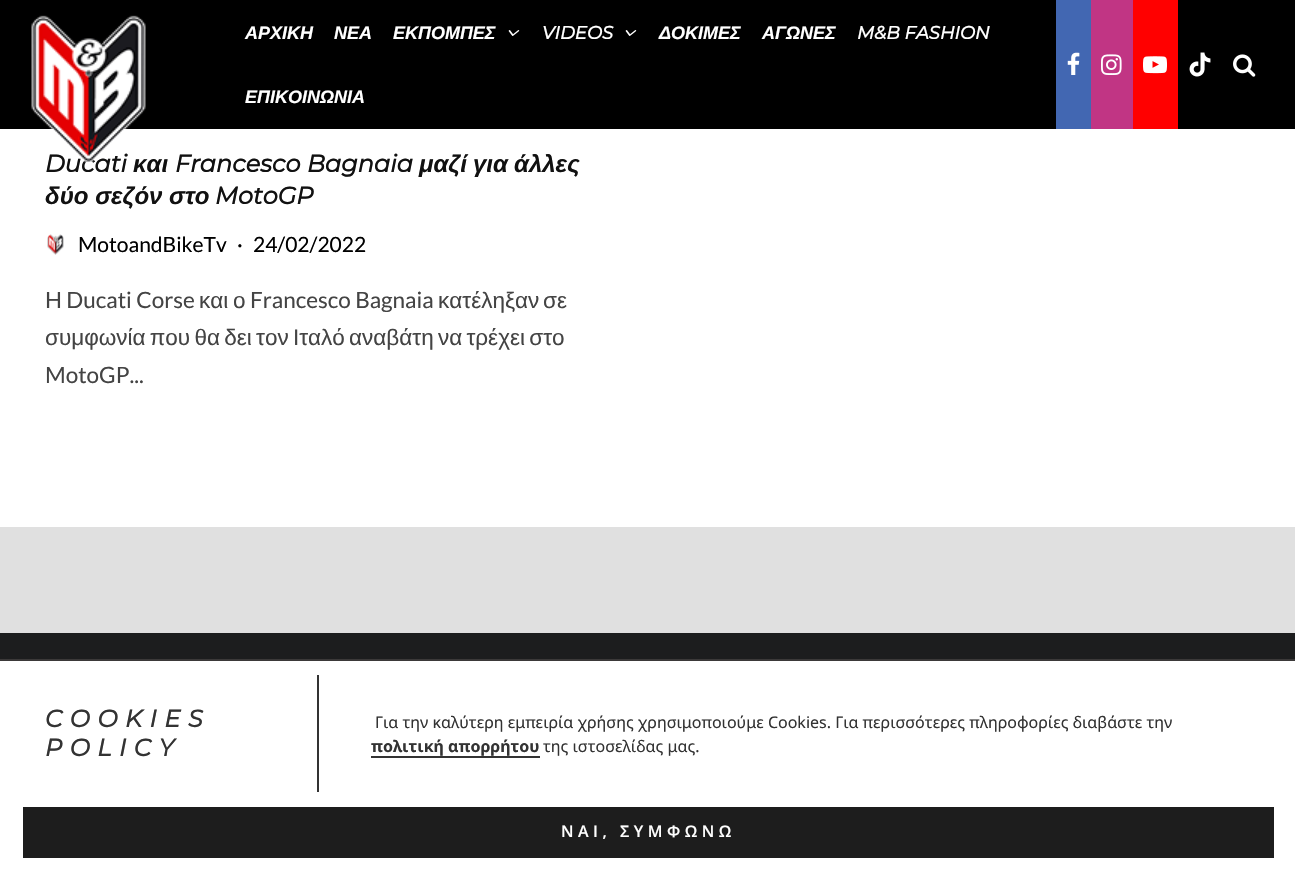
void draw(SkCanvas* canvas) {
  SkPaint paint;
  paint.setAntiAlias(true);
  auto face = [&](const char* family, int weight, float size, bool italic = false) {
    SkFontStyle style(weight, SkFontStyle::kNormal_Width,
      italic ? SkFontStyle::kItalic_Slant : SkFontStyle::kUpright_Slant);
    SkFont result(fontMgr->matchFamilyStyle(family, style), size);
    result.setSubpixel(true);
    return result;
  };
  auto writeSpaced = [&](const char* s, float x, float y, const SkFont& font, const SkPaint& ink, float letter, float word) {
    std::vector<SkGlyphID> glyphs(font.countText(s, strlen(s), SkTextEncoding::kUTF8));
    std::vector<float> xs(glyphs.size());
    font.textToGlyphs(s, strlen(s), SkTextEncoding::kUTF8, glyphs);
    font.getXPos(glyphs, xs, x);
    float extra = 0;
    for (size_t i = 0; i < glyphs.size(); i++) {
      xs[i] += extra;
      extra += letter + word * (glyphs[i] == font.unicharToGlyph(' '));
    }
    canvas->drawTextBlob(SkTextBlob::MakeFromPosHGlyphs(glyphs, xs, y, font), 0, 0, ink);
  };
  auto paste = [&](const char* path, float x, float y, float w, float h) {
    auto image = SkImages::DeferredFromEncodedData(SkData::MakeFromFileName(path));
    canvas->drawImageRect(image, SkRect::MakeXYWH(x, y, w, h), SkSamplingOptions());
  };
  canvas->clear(0xffe0e0e0);
  paint.setColor(0xff000000);
  canvas->drawRect(SkRect::MakeXYWH(0, 0, 1295, 129), paint);
  paste("img/2.png", 508, 30, 12, 6);
  paste("img/2.png", 625, 30, 12, 6);
  paint.setColor(0xff4267b2);
  canvas->drawRect(SkRect::MakeXYWH(1056, 0, 35, 129), paint);
  paste("img/3.png", 1067, 52, 13, 23);
  paint.setColor(0xffc13584);
  canvas->drawRect(SkRect::MakeXYWH(1091, 0, 42, 129), paint);
  paste("img/4.png", 1101, 54, 21, 21);
  paint.setColor(0xffff0000);
  canvas->drawRect(SkRect::MakeXYWH(1133, 0, 45, 129), paint);
  paste("img/5.png", 1143, 56, 24, 18);
  paste("img/6.png", 1189, 52, 22, 25);
  paste("img/7.png", 1233, 54, 23, 23);
  paint.setColor(0xffffffff);
  canvas->drawRect(SkRect::MakeXYWH(0, 129, 1295, 398), paint);
  paste("img/8.png", 47, 234, 17, 21);
  {
    const struct { float x, y, w, h; SkColor color; } items[] = {
      {0, 633, 1295, 26, 0xff1c1d1e},
      {0, 661, 1295, 211, 0xffffffff},
      {0, 659, 1295, 2, 0xff3b3939},
      {317, 675, 2, 117, 0xff333333},
      {371, 756, 169, 2, 0xff333333},
      {23, 807, 1251, 51, 0xff1d1d1d},
    };
    for (auto [x, y, w, h, color] : items) {
      paint.setColor(color);
      canvas->drawRect(SkRect::MakeXYWH(x, y, w, h), paint);
    }
  }
  auto f0 = face("Liberation Sans", 700, 18, true);
  paint.setColor(0xffffffff);
  {
    const struct { const char* s; float x, y; } items[] = {
      {"ΑΡΧΙΚΗ", 245, 39},
      {"ΝΕΑ", 334, 39},
      {"ΕΚΠΟΜΠΕΣ", 393, 39},
    };
    for (auto [s, x, y] : items) {
      canvas->drawString(s, x, y, f0, paint);
    }
  }
  auto f1 = face("Montserrat", 700, 18, true);
  canvas->drawString("VIDEOS", 542, 39, f1, paint);
  canvas->drawString("ΔΟΚΙΜΕΣ", 659, 39, f0, paint);
  canvas->drawString("ΑΓΩΝΕΣ", 762, 39, f0, paint);
  canvas->drawString("M&B FASHION", 857, 39, f1, paint);
  canvas->drawString("ΕΠΙΚΟΙΝΩΝΙΑ", 245, 103, f0, paint);
  auto f2 = face("Montserrat", 700, 24, true);
  paint.setColor(0xff111111);
  canvas->drawString("Ducati", 45, 172, f2, paint);
  auto f3 = face("Liberation Sans", 700, 24, true);
  canvas->drawString("και", 133, 172, f3, paint);
  paste("img/1.png", 31, 15, 115, 148);
  canvas->drawString("Francesco Bagnaia", 175, 172, f2, paint);
  {
    const struct { const char* s; float x, y; } items[] = {
      {"μαζί", 419, 172},
      {"για", 473, 172},
      {"άλλες", 514, 172},
      {"δύο σεζόν στο", 45, 204},
    };
    for (auto [s, x, y] : items) {
      canvas->drawString(s, x, y, f3, paint);
    }
  }
  canvas->drawString("MotoGP", 215, 204, f2, paint);
  auto f4 = face("Lato", 400, 21);
  paint.setColor(0xff000000);
  {
    const struct { const char* s; float x, y; } items[] = {
      {"MotoandBikeTv", 78, 252},
      {"·", 237, 252},
      {"24/02/2022", 253, 252},
    };
    for (auto [s, x, y] : items) {
      canvas->drawString(s, x, y, f4, paint);
    }
  }
  auto f5 = face("Lato", 400, 22.5f);
  paint.setColor(0xff444444);
  canvas->drawString("H Ducati Corse", 45, 308, f5, paint);
  auto f6 = face("Liberation Sans", 400, 22.5f);
  canvas->drawString("και", 199, 308, f6, paint);
  canvas->drawString("ο", 233, 308, f6, paint);
  canvas->drawString("Francesco Bagnaia", 250, 308, f5, paint);
  canvas->drawString("κατέληξαν", 438, 308, f6, paint);
  canvas->drawString("σε", 543, 308, f6, paint);
  writeSpaced("συμφωνία που θα δει τον Ιταλό αναβάτη να τρέχει στο", 45, 345, f6, paint, 0, -2);
  canvas->drawString("MotoGP...", 45, 383, f5, paint);
  paint.setColor(0xff333333);
  writeSpaced("COOKIES", 45, 727, f2, paint, 7.5f, 0);
  writeSpaced("POLICY", 45, 756, f2, paint, 7.5f, 0);
  auto f7 = face("Noto Sans", 400, 16);
  canvas->drawString("Για την καλύτερη εμπειρία χρήσης χρησιμοποιούμε Cookies. Για περισσότερες πληροφορίες διαβάστε την", 375, 728, f7, paint);
  auto f8 = face("Noto Sans", 700, 16);
  canvas->drawString("πολιτική απορρήτου", 371, 752, f8, paint);
  canvas->drawString("της ιστοσελίδας μας.", 543, 752, f7, paint);
  auto f9 = face("Open Sans", 600, 16);
  paint.setColor(0xffffffff);
  writeSpaced("ΝΑΙ, ΣΥΜΦΩΝΩ", 561, 837, f9, paint, 4.5f, 0);
}
